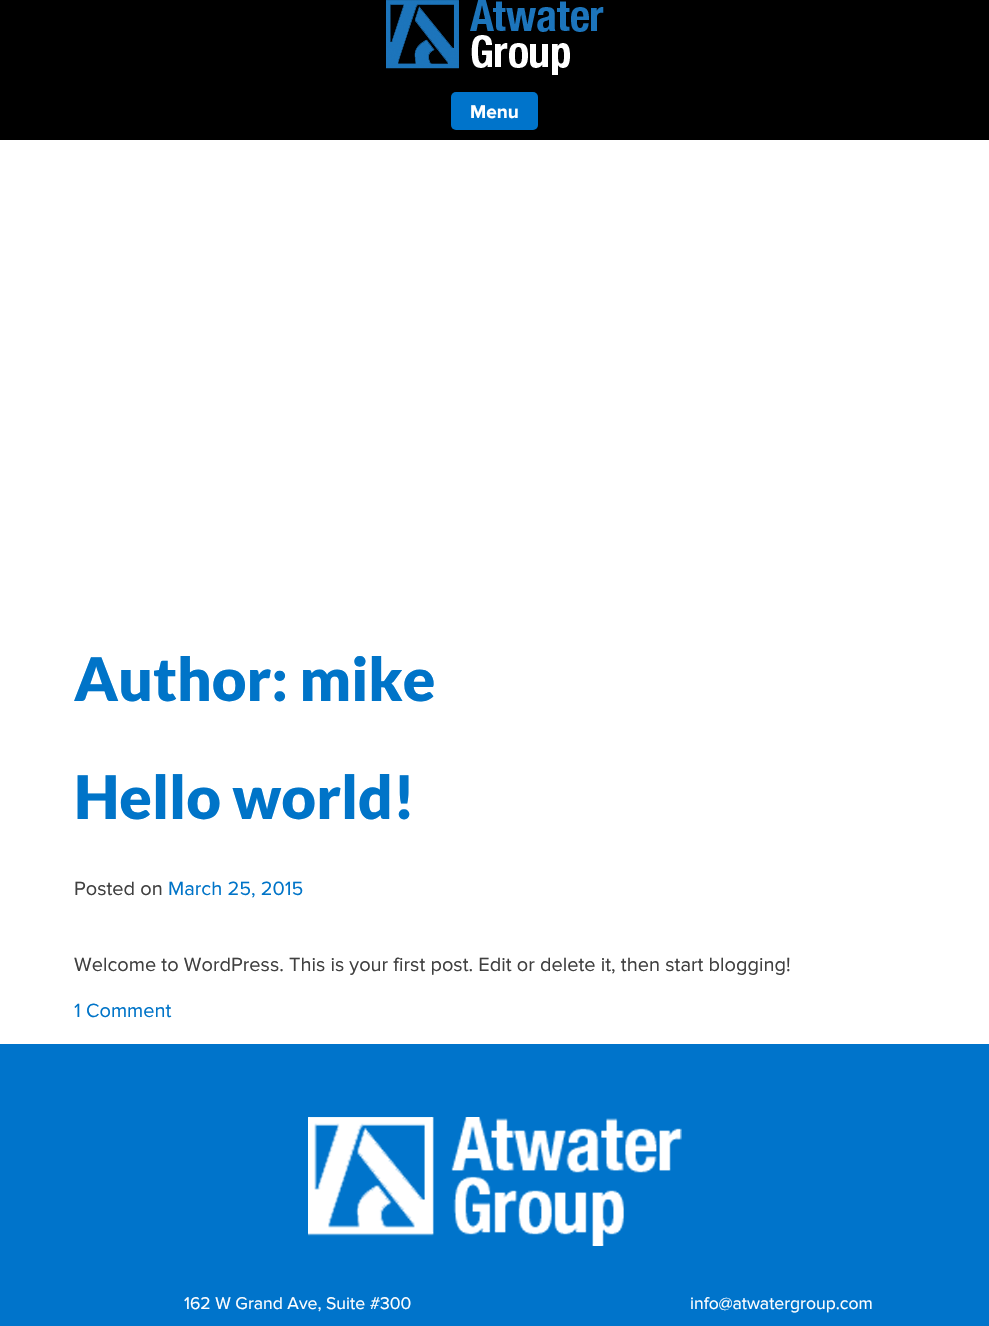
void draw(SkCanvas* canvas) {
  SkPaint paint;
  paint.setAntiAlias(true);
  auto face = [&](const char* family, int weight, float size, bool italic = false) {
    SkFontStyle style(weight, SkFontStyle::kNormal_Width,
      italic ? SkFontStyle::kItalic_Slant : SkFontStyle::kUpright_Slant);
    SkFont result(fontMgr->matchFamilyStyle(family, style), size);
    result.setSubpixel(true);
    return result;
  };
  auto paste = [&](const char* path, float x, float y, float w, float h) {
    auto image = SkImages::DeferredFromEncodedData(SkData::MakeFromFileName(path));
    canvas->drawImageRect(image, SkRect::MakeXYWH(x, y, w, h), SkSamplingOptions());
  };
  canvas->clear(0xffffffff);
  paint.setColor(0xff000000);
  canvas->drawRect(SkRect::MakeXYWH(0, 0, 989, 140), paint);
  paste("img/1.png", 386, 0, 218, 75);
  paint.setColor(0xff0074cb);
  canvas->drawRoundRect(SkRect::MakeXYWH(451, 92, 87, 38), 5, 5, paint);
  canvas->drawRect(SkRect::MakeXYWH(0, 1044, 989, 282), paint);
  paste("img/2.png", 308, 1117, 374, 129);
  auto f0 = face("Proxima Nova", 700, 19);
  paint.setColor(0xffffffff);
  canvas->drawString("Menu", 470, 118, f0, paint);
  auto f1 = face("Lato", 900, 60);
  paint.setColor(0xff0074c8);
  canvas->drawString("Author: mike", 74, 701, f1, paint);
  canvas->drawString("Hello world!", 74, 819, f1, paint);
  auto f2 = face("Proxima Nova", 400, 20);
  paint.setColor(0xff404040);
  canvas->drawString("Posted on", 74, 895, f2, paint);
  paint.setColor(0xff0074c8);
  canvas->drawString("March 25, 2015", 168, 895, f2, paint);
  paint.setColor(0xff404040);
  canvas->drawString("Welcome to WordPress. This is your first post. Edit or delete it, then start blogging!", 74, 971, f2, paint);
  paint.setColor(0xff0074c8);
  canvas->drawString("1 Comment", 74, 1017, f2, paint);
  auto f3 = face("Proxima Nova", 400, 17.6f);
  paint.setColor(0xffffffff);
  canvas->drawString("162 W Grand Ave, Suite #300", 184, 1309, f3, paint);
  canvas->drawString("info@atwatergroup.com", 690, 1309, f3, paint);
}
